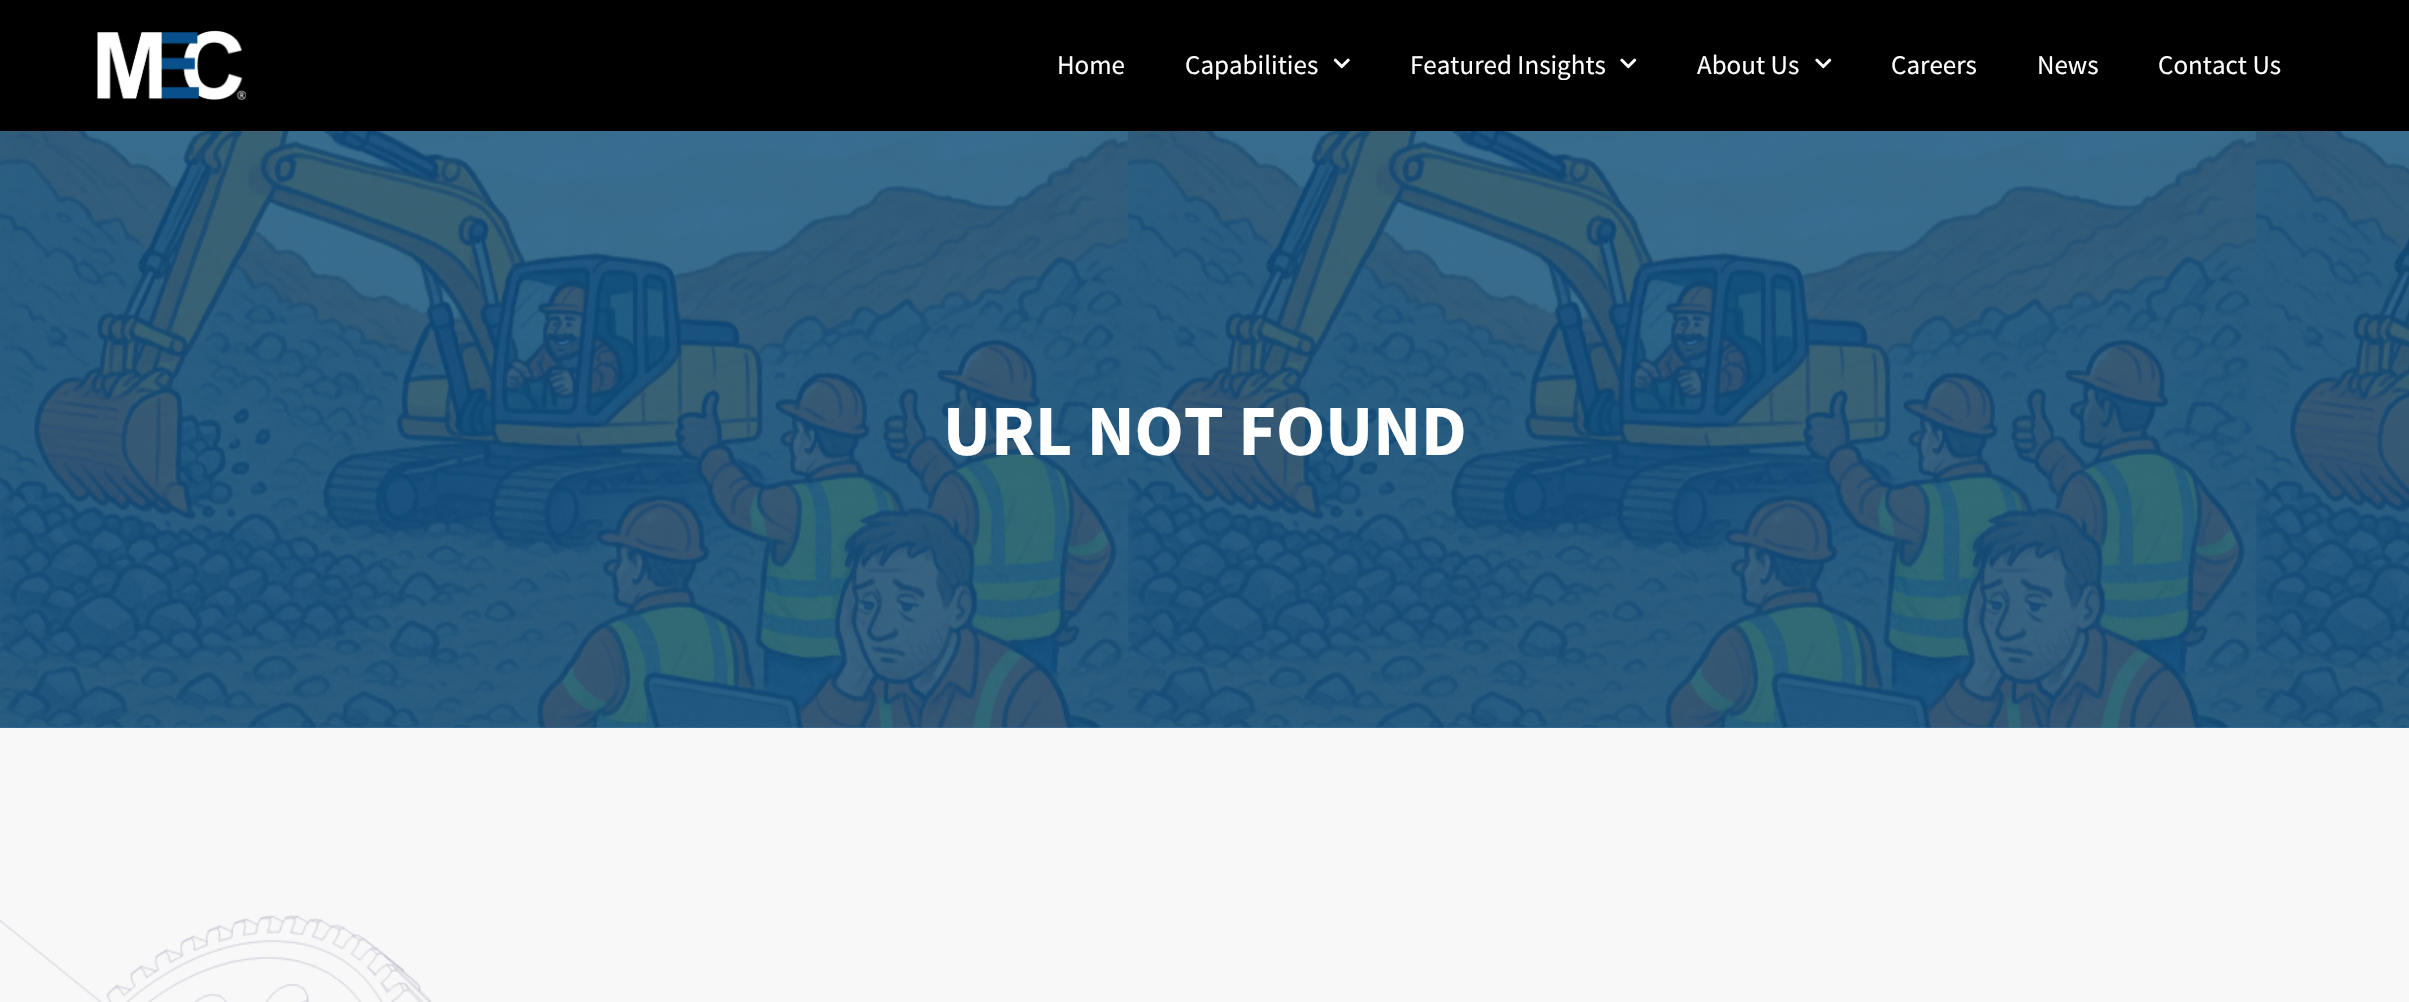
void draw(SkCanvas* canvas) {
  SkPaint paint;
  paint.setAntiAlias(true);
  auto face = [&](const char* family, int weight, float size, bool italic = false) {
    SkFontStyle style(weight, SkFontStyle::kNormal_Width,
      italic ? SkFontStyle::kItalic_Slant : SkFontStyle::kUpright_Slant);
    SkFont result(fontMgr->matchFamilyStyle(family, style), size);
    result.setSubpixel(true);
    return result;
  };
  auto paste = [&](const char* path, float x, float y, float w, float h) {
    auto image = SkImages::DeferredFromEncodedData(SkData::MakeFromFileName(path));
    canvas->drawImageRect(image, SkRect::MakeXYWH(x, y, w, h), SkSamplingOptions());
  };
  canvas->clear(0xfff8f8f8);
  paint.setColor(0xff3772a2);
  canvas->drawRect(SkRect::MakeXYWH(0, 727, 2409, 1), paint);
  paint.setColor(0xff000000);
  canvas->drawRect(SkRect::MakeXYWH(0, 0, 2409, 131), paint);
  paste("img/1.png", 97, 30, 149, 70);
  paste("img/2.png", 1333, 58, 17, 11);
  paste("img/3.png", 1620, 58, 17, 11);
  paste("img/3.png", 1815, 58, 17, 11);
  paste("img/4.png", 0, 131, 2409, 597);
  paste("img/5.png", 0, 915, 432, 87);
  auto f0 = face("Source Sans Pro", 400, 27);
  paint.setColor(0xffffffff);
  {
    const struct { const char* s; float x, y; } items[] = {
      {"Home", 1057, 74},
      {"Capabilities", 1185, 74},
      {"Featured Insights", 1410, 74},
      {"About Us", 1697, 74},
      {"Careers", 1891, 74},
      {"News", 2037, 74},
      {"Contact Us", 2158, 74},
    };
    for (auto [s, x, y] : items) {
      canvas->drawString(s, x, y, f0, paint);
    }
  }
  auto f1 = face("Source Sans Pro", 700, 72);
  canvas->drawString("URL NOT FOUND", 943, 455, f1, paint);
}
